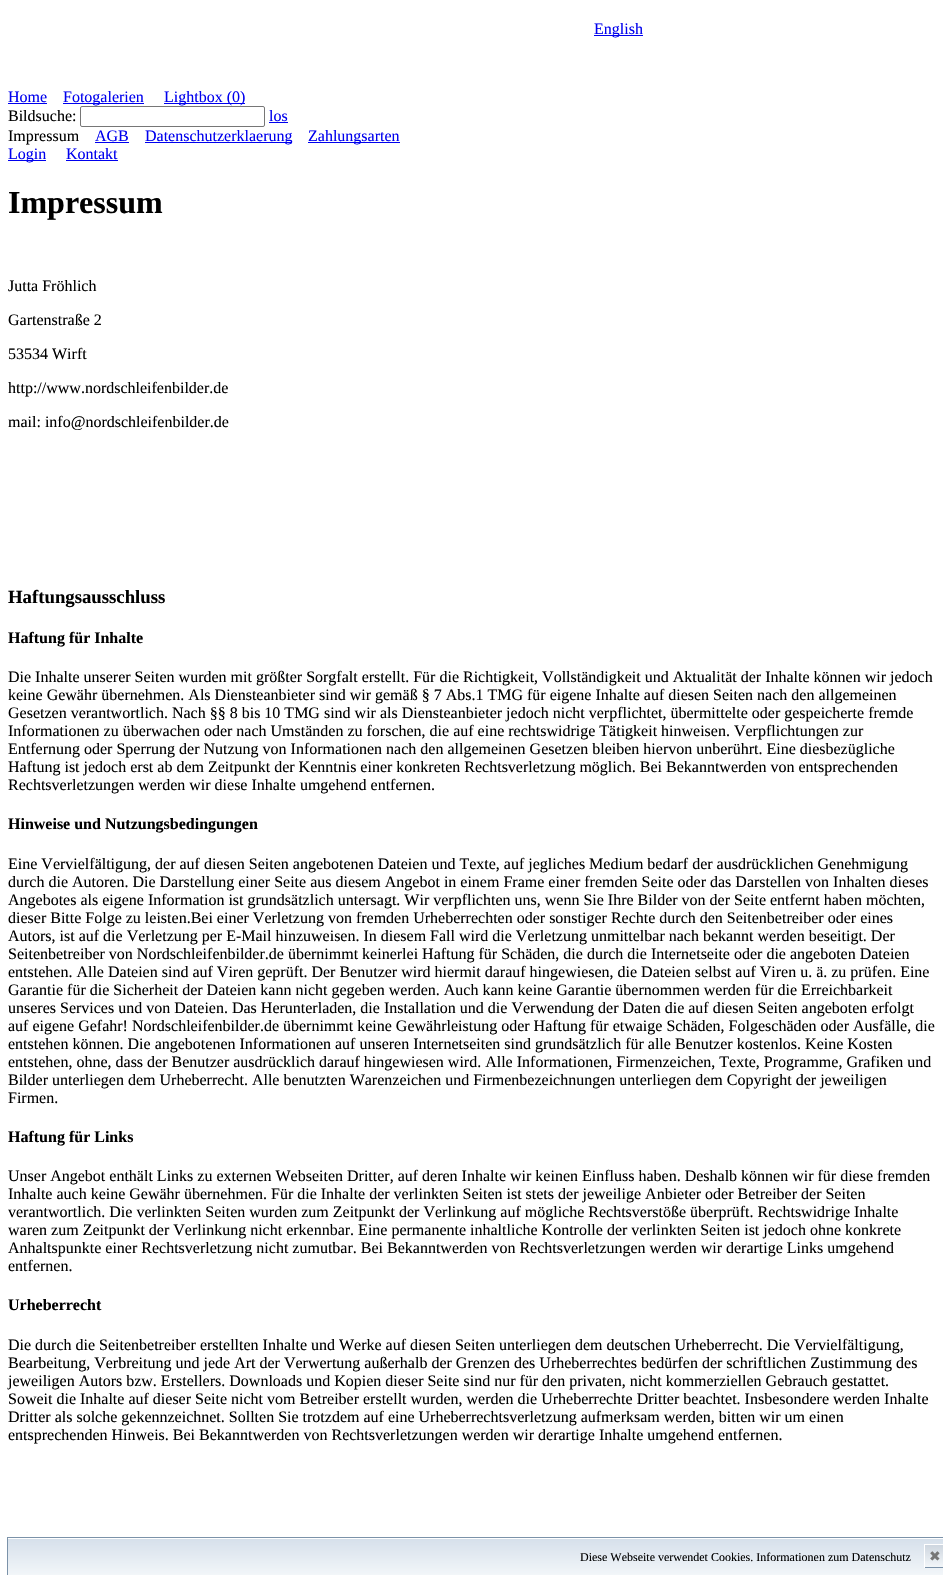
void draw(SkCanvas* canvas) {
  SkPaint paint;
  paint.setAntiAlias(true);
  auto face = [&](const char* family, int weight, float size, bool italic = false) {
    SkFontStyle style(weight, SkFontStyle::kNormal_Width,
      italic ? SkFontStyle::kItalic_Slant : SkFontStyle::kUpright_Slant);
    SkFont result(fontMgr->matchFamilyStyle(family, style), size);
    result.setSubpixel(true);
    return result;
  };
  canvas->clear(0xffffffff);
  {
    const struct { float x, y, w, h; SkColor color; } items[] = {
      {594, 35, 49, 1, 0xff0000ee},
      {8, 103, 39, 1, 0xff0000ee},
      {63, 103, 81, 1, 0xff0000ee},
      {164, 103, 81, 1, 0xff0000ee},
    };
    for (auto [x, y, w, h, color] : items) {
      paint.setColor(color);
      canvas->drawRect(SkRect::MakeXYWH(x, y, w, h), paint);
    }
  }
  paint.setStroke(true);
  paint.setStrokeWidth(1);
  paint.setColor(0xff767676);
  canvas->drawRoundRect(SkRect::MakeXYWH(80.5f, 106.5f, 184, 20), 1.5f, 1.5f, paint);
  paint.setStroke(false);
  {
    const struct { float x, y, w, h; SkColor color; } items[] = {
      {269, 122, 19, 1, 0xff0000ee},
      {95, 142, 34, 1, 0xff0000ee},
      {145, 142, 147, 1, 0xff0000ee},
      {308, 142, 92, 1, 0xff0000ee},
      {8, 160, 38, 1, 0xff0000ee},
      {66, 160, 52, 1, 0xff0000ee},
    };
    for (auto [x, y, w, h, color] : items) {
      paint.setColor(color);
      canvas->drawRect(SkRect::MakeXYWH(x, y, w, h), paint);
    }
  }
  {
    const SkColor colors[] = {0xffd6e0eb, 0xfff2f6f9};
    const float stops[] = {0, 1};
    const SkPoint ends[] = {{480, 1539}, {480, 1575}};
    paint.setShader(SkGradientShader::MakeLinear(ends, colors, stops, 2, SkTileMode::kClamp));
    paint.setAlpha(255);
  }
  canvas->drawRect(SkRect::MakeXYWH(8, 1539, 935, 36), paint);
  paint.setStroke(true);
  paint.setShader(nullptr);
  paint.setColor(0xff7b92a9);
  canvas->drawRect(SkRect::MakeXYWH(7.5f, 1537.5f, 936, 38), paint);
  paint.setStroke(false);
  {
    const SkColor colors[] = {0xffced6df, 0xfff2f6f9};
    const float stops[] = {0, 1};
    const SkPoint ends[] = {{925, 1545}, {925, 1567}};
    paint.setShader(SkGradientShader::MakeLinear(ends, colors, stops, 2, SkTileMode::kClamp));
    paint.setAlpha(255);
  }
  canvas->drawRect(SkRect::MakeXYWH(925, 1545, 18, 22), paint);
  paint.setShader(nullptr);
  {
    const struct { float x, y, w, h; SkColor color; } items[] = {
      {924, 1544, 19, 1, 0xffffffff},
      {924, 1567, 19, 1, 0xff7b92a9},
      {924, 1544, 1, 24, 0xffffffff},
    };
    for (auto [x, y, w, h, color] : items) {
      paint.setColor(color);
      canvas->drawRect(SkRect::MakeXYWH(x, y, w, h), paint);
    }
  }
  auto f0 = face("Liberation Serif", 400, 16);
  paint.setColor(0xff0000ee);
  {
    const struct { const char* s; float x, y; } items[] = {
      {"English", 594, 34},
      {"Home", 8, 102},
      {"Fotogalerien", 63, 102},
      {"Lightbox (0)", 164, 102},
    };
    for (auto [s, x, y] : items) {
      canvas->drawString(s, x, y, f0, paint);
    }
  }
  paint.setColor(0xff000000);
  canvas->drawString("Bildsuche:", 8, 121, f0, paint);
  paint.setColor(0xff0000ee);
  canvas->drawString("los", 269, 121, f0, paint);
  paint.setColor(0xff000000);
  canvas->drawString("Impressum", 8, 141, f0, paint);
  paint.setColor(0xff0000ee);
  {
    const struct { const char* s; float x, y; } items[] = {
      {"AGB", 95, 141},
      {"Datenschutzerklaerung", 145, 141},
      {"Zahlungsarten", 308, 141},
      {"Login", 8, 159},
      {"Kontakt", 66, 159},
    };
    for (auto [s, x, y] : items) {
      canvas->drawString(s, x, y, f0, paint);
    }
  }
  auto f1 = face("Liberation Serif", 700, 32);
  paint.setColor(0xff000000);
  canvas->drawString("Impressum", 8, 213, f1, paint);
  {
    const struct { const char* s; float x, y; } items[] = {
      {"Jutta Fröhlich", 8, 291},
      {"Gartenstraße 2", 8, 325},
      {"53534 Wirft", 8, 359},
      {"http://www.nordschleifenbilder.de", 8, 393},
      {"mail: info@nordschleifenbilder.de", 8, 427},
    };
    for (auto [s, x, y] : items) {
      canvas->drawString(s, x, y, f0, paint);
    }
  }
  auto f2 = face("Liberation Serif", 700, 18.75f);
  canvas->drawString("Haftungsausschluss", 8, 603, f2, paint);
  auto f3 = face("Liberation Serif", 700, 16);
  canvas->drawString("Haftung für Inhalte", 8, 643, f3, paint);
  {
    const struct { const char* s; float x, y; } items[] = {
      {"Die Inhalte unserer Seiten wurden mit größter Sorgfalt erstellt. Für die Richtigkeit, Vollständigkeit und Aktualität der Inhalte können wir jedoch", 8, 682},
      {"keine Gewähr übernehmen. Als Diensteanbieter sind wir gemäß § 7 Abs.1 TMG für eigene Inhalte auf diesen Seiten nach den allgemeinen", 8, 700},
      {"Gesetzen verantwortlich. Nach §§ 8 bis 10 TMG sind wir als Diensteanbieter jedoch nicht verpflichtet, übermittelte oder gespeicherte fremde", 8, 718},
      {"Informationen zu überwachen oder nach Umständen zu forschen, die auf eine rechtswidrige Tätigkeit hinweisen. Verpflichtungen zur", 8, 736},
      {"Entfernung oder Sperrung der Nutzung von Informationen nach den allgemeinen Gesetzen bleiben hiervon unberührt. Eine diesbezügliche", 8, 754},
      {"Haftung ist jedoch erst ab dem Zeitpunkt der Kenntnis einer konkreten Rechtsverletzung möglich. Bei Bekanntwerden von entsprechenden", 8, 772},
      {"Rechtsverletzungen werden wir diese Inhalte umgehend entfernen.", 8, 790},
    };
    for (auto [s, x, y] : items) {
      canvas->drawString(s, x, y, f0, paint);
    }
  }
  canvas->drawString("Hinweise und Nutzungsbedingungen", 8, 829, f3, paint);
  {
    const struct { const char* s; float x, y; } items[] = {
      {"Eine Vervielfältigung, der auf diesen Seiten angebotenen Dateien und Texte, auf jegliches Medium bedarf der ausdrücklichen Genehmigung", 8, 869},
      {"durch die Autoren. Die Darstellung einer Seite aus diesem Angebot in einem Frame einer fremden Seite oder das Darstellen von Inhalten dieses", 8, 887},
      {"Angebotes als eigene Information ist grundsätzlich untersagt. Wir verpflichten uns, wenn Sie Ihre Bilder von der Seite entfernt haben möchten,", 8, 905},
      {"dieser Bitte Folge zu leisten.Bei einer Verletzung von fremden Urheberrechten oder sonstiger Rechte durch den Seitenbetreiber oder eines", 8, 923},
      {"Autors, ist auf die Verletzung per E-Mail hinzuweisen. In diesem Fall wird die Verletzung unmittelbar nach bekannt werden beseitigt. Der", 8, 941},
      {"Seitenbetreiber von Nordschleifenbilder.de übernimmt keinerlei Haftung für Schäden, die durch die Internetseite oder die angeboten Dateien", 8, 959},
      {"entstehen. Alle Dateien sind auf Viren geprüft. Der Benutzer wird hiermit darauf hingewiesen, die Dateien selbst auf Viren u. ä. zu prüfen. Eine", 8, 977},
      {"Garantie für die Sicherheit der Dateien kann nicht gegeben werden. Auch kann keine Garantie übernommen werden für die Erreichbarkeit", 8, 995},
      {"unseres Services und von Dateien. Das Herunterladen, die Installation und die Verwendung der Daten die auf diesen Seiten angeboten erfolgt", 8, 1013},
      {"auf eigene Gefahr! Nordschleifenbilder.de übernimmt keine Gewährleistung oder Haftung für etwaige Schäden, Folgeschäden oder Ausfälle, die", 8, 1031},
      {"entstehen können. Die angebotenen Informationen auf unseren Internetseiten sind grundsätzlich für alle Benutzer kostenlos. Keine Kosten", 8, 1049},
      {"entstehen, ohne, dass der Benutzer ausdrücklich darauf hingewiesen wird. Alle Informationen, Firmenzeichen, Texte, Programme, Grafiken und", 8, 1067},
      {"Bilder unterliegen dem Urheberrecht. Alle benutzten Warenzeichen und Firmenbezeichnungen unterliegen dem Copyright der jeweiligen", 8, 1085},
      {"Firmen.", 8, 1103},
    };
    for (auto [s, x, y] : items) {
      canvas->drawString(s, x, y, f0, paint);
    }
  }
  canvas->drawString("Haftung für Links", 8, 1142, f3, paint);
  {
    const struct { const char* s; float x, y; } items[] = {
      {"Unser Angebot enthält Links zu externen Webseiten Dritter, auf deren Inhalte wir keinen Einfluss haben. Deshalb können wir für diese fremden", 8, 1181},
      {"Inhalte auch keine Gewähr übernehmen. Für die Inhalte der verlinkten Seiten ist stets der jeweilige Anbieter oder Betreiber der Seiten", 8, 1199},
      {"verantwortlich. Die verlinkten Seiten wurden zum Zeitpunkt der Verlinkung auf mögliche Rechtsverstöße überprüft. Rechtswidrige Inhalte", 8, 1217},
      {"waren zum Zeitpunkt der Verlinkung nicht erkennbar. Eine permanente inhaltliche Kontrolle der verlinkten Seiten ist jedoch ohne konkrete", 8, 1235},
      {"Anhaltspunkte einer Rechtsverletzung nicht zumutbar. Bei Bekanntwerden von Rechtsverletzungen werden wir derartige Links umgehend", 8, 1253},
      {"entfernen.", 8, 1271},
    };
    for (auto [s, x, y] : items) {
      canvas->drawString(s, x, y, f0, paint);
    }
  }
  canvas->drawString("Urheberrecht", 8, 1310, f3, paint);
  {
    const struct { const char* s; float x, y; } items[] = {
      {"Die durch die Seitenbetreiber erstellten Inhalte und Werke auf diesen Seiten unterliegen dem deutschen Urheberrecht. Die Vervielfältigung,", 8, 1350},
      {"Bearbeitung, Verbreitung und jede Art der Verwertung außerhalb der Grenzen des Urheberrechtes bedürfen der schriftlichen Zustimmung des", 8, 1368},
      {"jeweiligen Autors bzw. Erstellers. Downloads und Kopien dieser Seite sind nur für den privaten, nicht kommerziellen Gebrauch gestattet.", 8, 1386},
      {"Soweit die Inhalte auf dieser Seite nicht vom Betreiber erstellt wurden, werden die Urheberrechte Dritter beachtet. Insbesondere werden Inhalte", 8, 1404},
      {"Dritter als solche gekennzeichnet. Sollten Sie trotzdem auf eine Urheberrechtsverletzung aufmerksam werden, bitten wir um einen", 8, 1422},
      {"entsprechenden Hinweis. Bei Bekanntwerden von Rechtsverletzungen werden wir derartige Inhalte umgehend entfernen.", 8, 1440},
    };
    for (auto [s, x, y] : items) {
      canvas->drawString(s, x, y, f0, paint);
    }
  }
  auto f4 = face("Liberation Serif", 400, 12);
  canvas->drawString("Diese Webseite verwendet Cookies. Informationen zum Datenschutz", 580, 1561, f4, paint);
  auto f5 = face("DejaVu Sans", 400, 14);
  paint.setColor(0xff777777);
  canvas->drawString("✖", 929, 1561, f5, paint);
}
